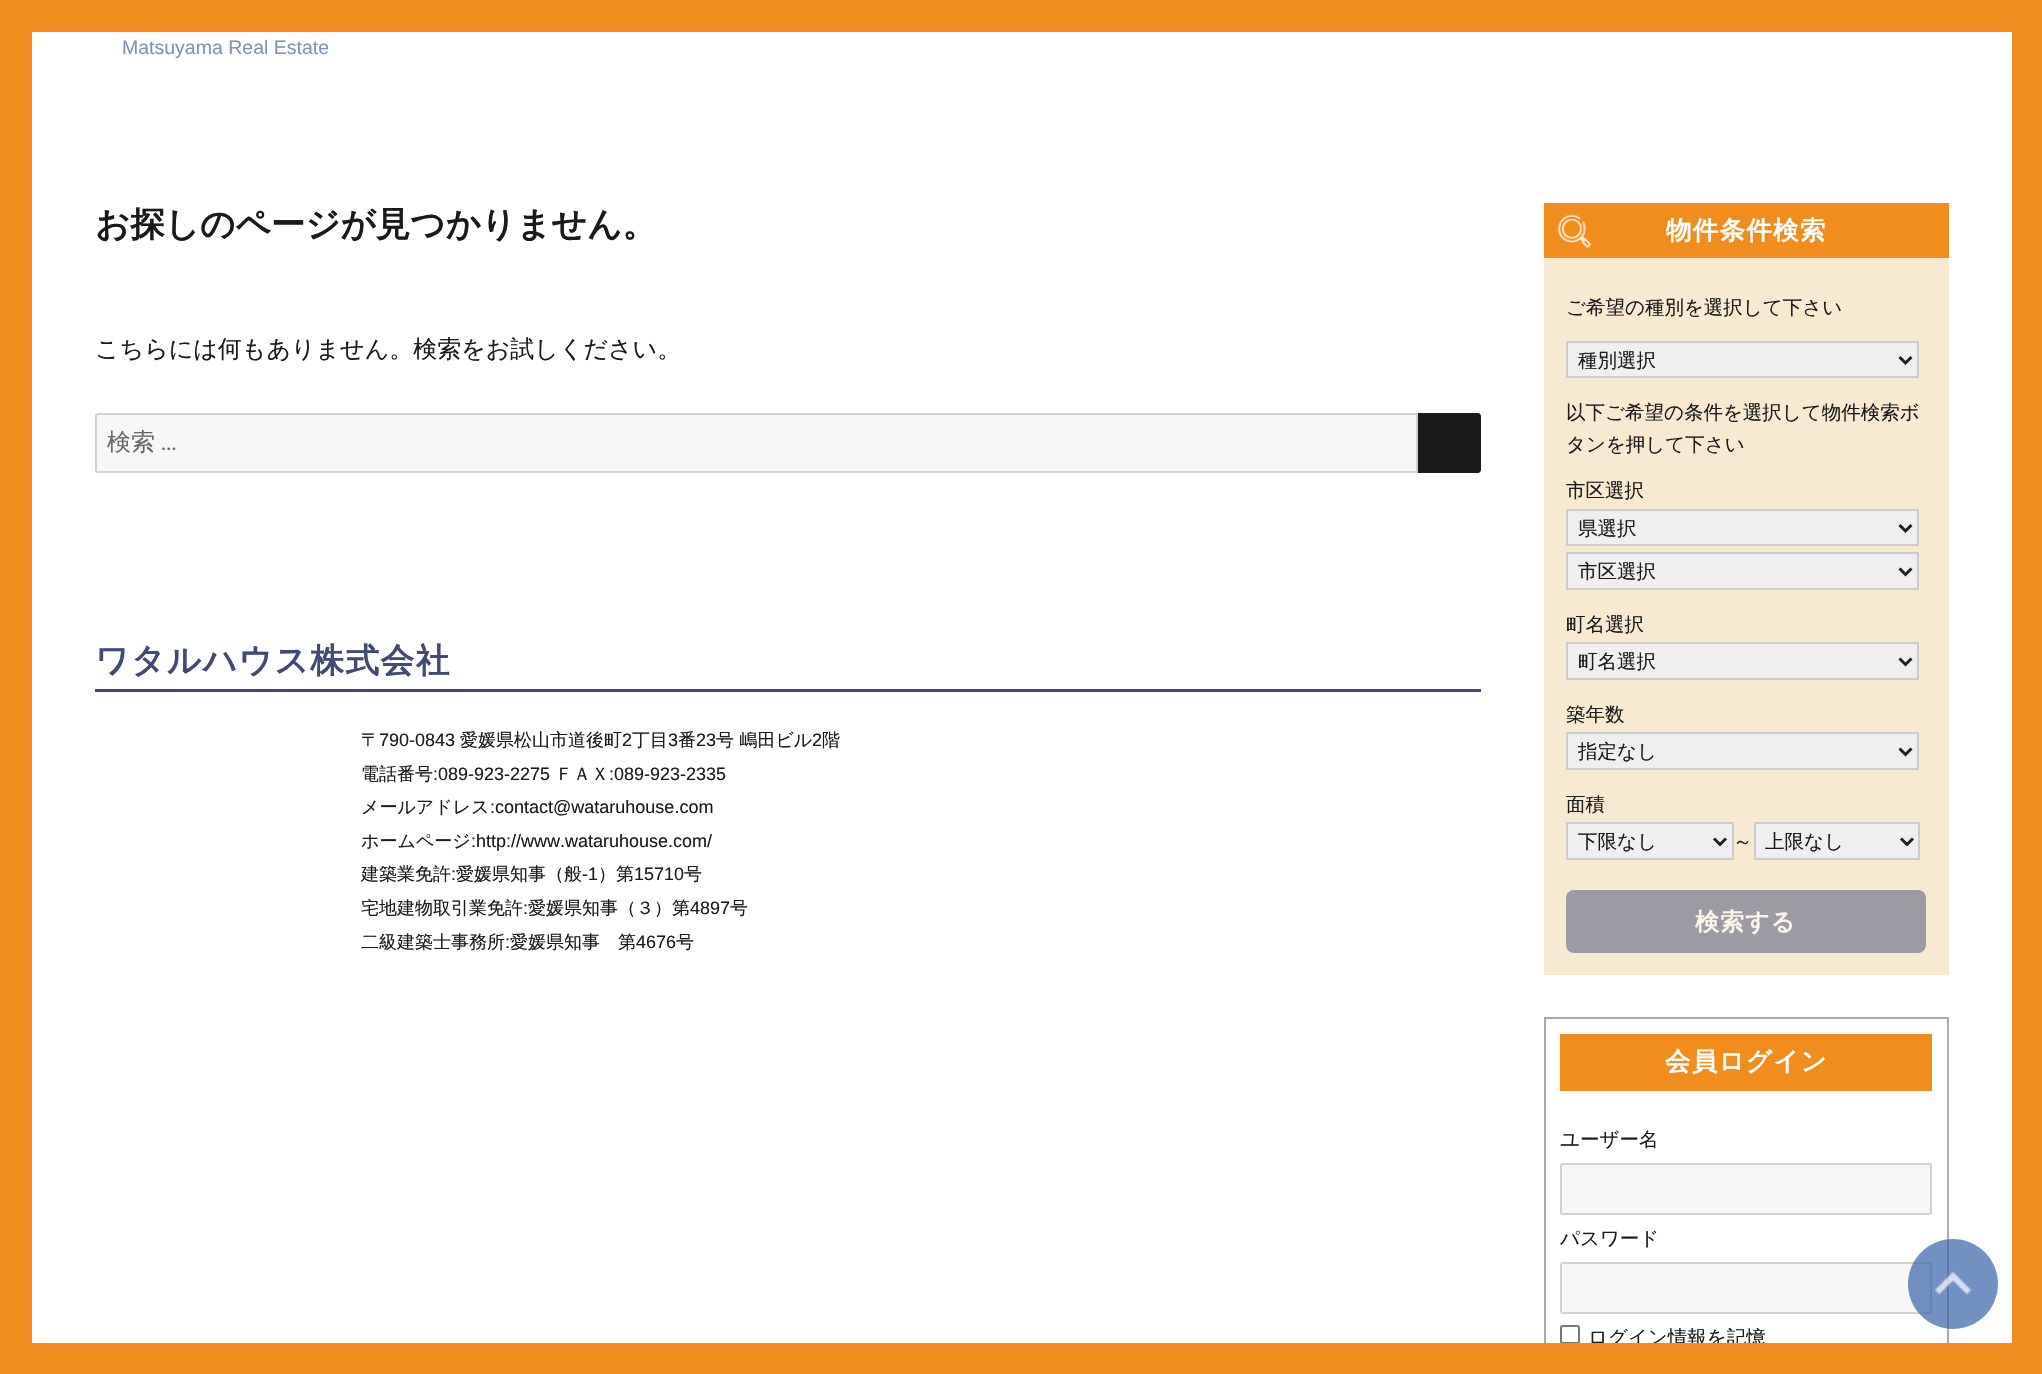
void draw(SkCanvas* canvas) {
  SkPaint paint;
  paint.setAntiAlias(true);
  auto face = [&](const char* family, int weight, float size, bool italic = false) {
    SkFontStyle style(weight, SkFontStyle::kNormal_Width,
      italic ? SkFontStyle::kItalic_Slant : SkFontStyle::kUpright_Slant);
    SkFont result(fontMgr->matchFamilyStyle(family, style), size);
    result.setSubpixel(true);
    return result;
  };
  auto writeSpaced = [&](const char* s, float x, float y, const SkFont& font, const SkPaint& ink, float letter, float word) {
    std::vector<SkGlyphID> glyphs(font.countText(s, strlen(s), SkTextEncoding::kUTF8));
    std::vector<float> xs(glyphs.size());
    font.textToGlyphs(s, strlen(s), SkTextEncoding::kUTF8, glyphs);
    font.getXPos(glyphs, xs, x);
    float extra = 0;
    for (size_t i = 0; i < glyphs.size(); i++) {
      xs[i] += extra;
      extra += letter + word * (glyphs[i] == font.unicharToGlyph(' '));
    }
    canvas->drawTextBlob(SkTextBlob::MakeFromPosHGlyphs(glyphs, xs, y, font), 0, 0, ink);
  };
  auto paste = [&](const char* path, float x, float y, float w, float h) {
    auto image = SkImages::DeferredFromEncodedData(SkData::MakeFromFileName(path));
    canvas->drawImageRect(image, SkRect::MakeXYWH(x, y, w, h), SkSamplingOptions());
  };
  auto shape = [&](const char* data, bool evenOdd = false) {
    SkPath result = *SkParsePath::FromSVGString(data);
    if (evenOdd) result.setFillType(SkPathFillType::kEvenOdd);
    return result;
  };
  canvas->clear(0xfff18d1d);
  paint.setColor(0xffffffff);
  canvas->drawRect(SkRect::MakeXYWH(32, 32, 1980, 1311), paint);
  paint.setColor(0xfff7f7f7);
  canvas->drawPath(shape("M98 414H1417V472H98C97 472 96 471 96 470V416C96 415 97 414 98 414Z"), paint);
  paint.setStroke(true);
  paint.setStrokeWidth(2);
  paint.setColor(0xffd1d1d1);
  canvas->drawPath(shape("M98 414H1417V472H98C97 472 96 471 96 470V416C96 415 97 414 98 414Z"), paint);
  paint.setStroke(false);
  paint.setColor(0xff1a1a1a);
  canvas->drawPath(shape("M1418 413H1478C1479.5 413 1481 414.5 1481 416V470C1481 471.5 1479.5 473 1478 473H1418Z"), paint);
  {
    const struct { float x, y, w, h; SkColor color; } items[] = {
      {95, 689, 1386, 3, 0xff404a72},
      {1544, 258, 405, 717, 0xfff8e9d1},
      {1544, 203, 405, 55, 0xfff18d1d},
    };
    for (auto [x, y, w, h, color] : items) {
      paint.setColor(color);
      canvas->drawRect(SkRect::MakeXYWH(x, y, w, h), paint);
    }
  }
  paste("img/1.png", 1558, 214, 34, 34);
  paint.setColor(0xffefefef);
  canvas->drawRect(SkRect::MakeXYWH(1567, 342, 351, 35), paint);
  paint.setStroke(true);
  paint.setColor(0xffcccccc);
  canvas->drawRect(SkRect::MakeXYWH(1567, 342, 351, 35), paint);
  paint.setStrokeWidth(3);
  paint.setColor(0xff1f1f1f);
  canvas->drawPath(shape("M1899.5 357L1905.5 363L1911.5 357"), paint);
  paint.setStroke(false);
  paint.setColor(0xffefefef);
  canvas->drawRect(SkRect::MakeXYWH(1567, 510, 351, 35), paint);
  paint.setStroke(true);
  paint.setStrokeWidth(2);
  paint.setColor(0xffcccccc);
  canvas->drawRect(SkRect::MakeXYWH(1567, 510, 351, 35), paint);
  paint.setStrokeWidth(3);
  paint.setColor(0xff1f1f1f);
  canvas->drawPath(shape("M1899.5 525L1905.5 531L1911.5 525"), paint);
  paint.setStroke(false);
  paint.setColor(0xffefefef);
  canvas->drawRect(SkRect::MakeXYWH(1567, 553, 351, 36), paint);
  paint.setStroke(true);
  paint.setStrokeWidth(2);
  paint.setColor(0xffcccccc);
  canvas->drawRect(SkRect::MakeXYWH(1567, 553, 351, 36), paint);
  paint.setStrokeWidth(3);
  paint.setColor(0xff1f1f1f);
  canvas->drawPath(shape("M1899.5 568.5L1905.5 574.5L1911.5 568.5"), paint);
  paint.setStroke(false);
  paint.setColor(0xffefefef);
  canvas->drawRect(SkRect::MakeXYWH(1567, 643, 351, 36), paint);
  paint.setStroke(true);
  paint.setStrokeWidth(2);
  paint.setColor(0xffcccccc);
  canvas->drawRect(SkRect::MakeXYWH(1567, 643, 351, 36), paint);
  paint.setStrokeWidth(3);
  paint.setColor(0xff1f1f1f);
  canvas->drawPath(shape("M1899.5 658.5L1905.5 664.5L1911.5 658.5"), paint);
  paint.setStroke(false);
  paint.setColor(0xffefefef);
  canvas->drawRect(SkRect::MakeXYWH(1567, 733, 351, 36), paint);
  paint.setStroke(true);
  paint.setStrokeWidth(2);
  paint.setColor(0xffcccccc);
  canvas->drawRect(SkRect::MakeXYWH(1567, 733, 351, 36), paint);
  paint.setStrokeWidth(3);
  paint.setColor(0xff1f1f1f);
  canvas->drawPath(shape("M1899.5 748.5L1905.5 754.5L1911.5 748.5"), paint);
  paint.setStroke(false);
  paint.setColor(0xffefefef);
  canvas->drawRect(SkRect::MakeXYWH(1567, 823, 166, 36), paint);
  paint.setStroke(true);
  paint.setStrokeWidth(2);
  paint.setColor(0xffcccccc);
  canvas->drawRect(SkRect::MakeXYWH(1567, 823, 166, 36), paint);
  paint.setStrokeWidth(3);
  paint.setColor(0xff1f1f1f);
  canvas->drawPath(shape("M1714 838.5L1720 844.5L1726 838.5"), paint);
  paint.setStroke(false);
  paint.setColor(0xffefefef);
  canvas->drawRect(SkRect::MakeXYWH(1755, 823, 164, 36), paint);
  paint.setStroke(true);
  paint.setStrokeWidth(2);
  paint.setColor(0xffcccccc);
  canvas->drawRect(SkRect::MakeXYWH(1755, 823, 164, 36), paint);
  paint.setStrokeWidth(3);
  paint.setColor(0xff1f1f1f);
  canvas->drawPath(shape("M1901 838.5L1907 844.5L1913 838.5"), paint);
  paint.setStroke(false);
  paint.setColor(0xff9c9aa2);
  canvas->drawRoundRect(SkRect::MakeXYWH(1566, 890, 360, 63), 8, 8, paint);
  paint.setStroke(true);
  paint.setStrokeWidth(2);
  paint.setColor(0xffaaaaaa);
  canvas->drawRect(SkRect::MakeXYWH(1545, 1018, 403, 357), paint);
  paint.setStroke(false);
  paint.setColor(0xfff18d1d);
  canvas->drawRect(SkRect::MakeXYWH(1560, 1034, 372, 57), paint);
  paint.setColor(0xfff7f7f7);
  canvas->drawRoundRect(SkRect::MakeXYWH(1561, 1164, 370, 50), 2, 2, paint);
  paint.setStroke(true);
  paint.setColor(0xffd1d1d1);
  canvas->drawRoundRect(SkRect::MakeXYWH(1561, 1164, 370, 50), 2, 2, paint);
  paint.setStroke(false);
  paint.setColor(0xfff7f7f7);
  canvas->drawRoundRect(SkRect::MakeXYWH(1561, 1263, 370, 50), 2, 2, paint);
  paint.setStroke(true);
  paint.setColor(0xffd1d1d1);
  canvas->drawRoundRect(SkRect::MakeXYWH(1561, 1263, 370, 50), 2, 2, paint);
  paint.setColor(0xff767676);
  canvas->drawRoundRect(SkRect::MakeXYWH(1561, 1326, 18, 17), 2, 2, paint);
  paint.setStroke(false);
  paint.setColor(0xb33362a8);
  canvas->drawCircle(1953, 1284, 45, paint);
  paste("img/2.png", 1934, 1271, 38, 24);
  auto f0 = face("Liberation Sans", 400, 19.5f);
  paint.setColor(0xff7d93ba);
  canvas->drawString("Matsuyama Real Estate", 122, 54, f0, paint);
  auto f1 = face("WenQuanYi Zen Hei", 700, 34.5f);
  paint.setColor(0xff1a1a1a);
  canvas->drawString("お探しのページが見つかりません。", 95, 236, f1, paint);
  auto f2 = face("WenQuanYi Zen Hei", 500, 24);
  canvas->drawString("こちらには何もありません。検索をお試しください。", 95, 357, f2, paint);
  paint.setColor(0xff686868);
  canvas->drawString("検索", 107, 450, f2, paint);
  auto f3 = face("Montserrat", 400, 24);
  canvas->drawString("…", 161, 450, f3, paint);
  auto f4 = face("WenQuanYi Zen Hei", 700, 33.6f);
  paint.setColor(0xff404a72);
  writeSpaced("ワタルハウス株式会社", 95, 672, f4, paint, 1.5f, 0);
  auto f5 = face("WenQuanYi Zen Hei", 500, 18);
  paint.setColor(0xff1a1a1a);
  canvas->drawString("〒", 361, 746, f5, paint);
  auto f6 = face("Liberation Sans", 400, 18);
  canvas->drawString("790-0843", 379, 746, f6, paint);
  canvas->drawString("愛媛県松山市道後町", 460, 746, f5, paint);
  canvas->drawString("2", 622, 746, f6, paint);
  canvas->drawString("丁目", 632, 746, f5, paint);
  canvas->drawString("3", 668, 746, f6, paint);
  canvas->drawString("番", 678, 746, f5, paint);
  canvas->drawString("23", 696, 746, f6, paint);
  canvas->drawString("号 嶋田ビル", 716, 746, f5, paint);
  canvas->drawString("2", 812, 746, f6, paint);
  canvas->drawString("階", 822, 746, f5, paint);
  canvas->drawString("電話番号", 361, 780, f5, paint);
  canvas->drawString(":089-923-2275", 433, 780, f6, paint);
  canvas->drawString("ＦＡＸ", 555, 780, f5, paint);
  canvas->drawString(":089-923-2335", 609, 780, f6, paint);
  canvas->drawString("メールアドレス", 361, 813, f5, paint);
  canvas->drawString(":contact@wataruhouse.com", 490, 813, f6, paint);
  canvas->drawString("ホームページ", 361, 847, f5, paint);
  canvas->drawString(":http://www.wataruhouse.com/", 471, 847, f6, paint);
  canvas->drawString("建築業免許", 361, 880, f5, paint);
  canvas->drawString(":", 451, 880, f6, paint);
  canvas->drawString("愛媛県知事（般", 456, 880, f5, paint);
  canvas->drawString("-1", 582, 880, f6, paint);
  canvas->drawString("）第", 598, 880, f5, paint);
  canvas->drawString("15710", 634, 880, f6, paint);
  canvas->drawString("号", 684, 880, f5, paint);
  canvas->drawString("宅地建物取引業免許", 361, 914, f5, paint);
  canvas->drawString(":", 523, 914, f6, paint);
  canvas->drawString("愛媛県知事（３）第", 528, 914, f5, paint);
  canvas->drawString("4897", 690, 914, f6, paint);
  canvas->drawString("号", 730, 914, f5, paint);
  canvas->drawString("二級建築士事務所", 361, 948, f5, paint);
  canvas->drawString(":", 505, 948, f6, paint);
  canvas->drawString("愛媛県知事　第", 510, 948, f5, paint);
  canvas->drawString("4676", 636, 948, f6, paint);
  canvas->drawString("号", 676, 948, f5, paint);
  auto f7 = face("WenQuanYi Zen Hei", 700, 25.5f);
  paint.setColor(0xffffffff);
  writeSpaced("物件条件検索", 1666, 239, f7, paint, 1.25f, 0);
  auto f8 = face("WenQuanYi Zen Hei", 500, 19.5f);
  paint.setColor(0xff1a1a1a);
  {
    const struct { const char* s; float x, y; } items[] = {
      {"ご希望の種別を選択して下さい", 1566, 314},
      {"種別選択", 1578, 367},
      {"以下ご希望の条件を選択して物件検索ボ", 1566, 419},
      {"タンを押して下さい", 1566, 451},
      {"市区選択", 1566, 497},
      {"県選択", 1578, 535},
      {"市区選択", 1578, 578},
      {"町名選択", 1566, 631},
      {"町名選択", 1578, 668},
      {"築年数", 1566, 721},
      {"指定なし", 1578, 758},
      {"面積", 1566, 811},
      {"下限なし", 1578, 848},
      {"～", 1733, 848},
      {"上限なし", 1765, 848},
    };
    for (auto [s, x, y] : items) {
      canvas->drawString(s, x, y, f8, paint);
    }
  }
  auto f9 = face("WenQuanYi Zen Hei", 700, 24);
  paint.setColor(0xfffcf4e8);
  writeSpaced("検索する", 1695, 930, f9, paint, 1, 0);
  paint.setColor(0xffffffff);
  writeSpaced("会員ログイン", 1665, 1070, f7, paint, 1.25f, 0);
  paint.setColor(0xff1a1a1a);
  {
    const struct { const char* s; float x, y; } items[] = {
      {"ユーザー名", 1560, 1146},
      {"パスワード", 1560, 1245},
      {"ログイン情報を記憶", 1588, 1344},
    };
    for (auto [s, x, y] : items) {
      canvas->drawString(s, x, y, f8, paint);
    }
  }
  paint.setColor(0xfff18d1d);
  canvas->drawRect(SkRect::MakeXYWH(1544, 1343, 405, 31), paint);
}
